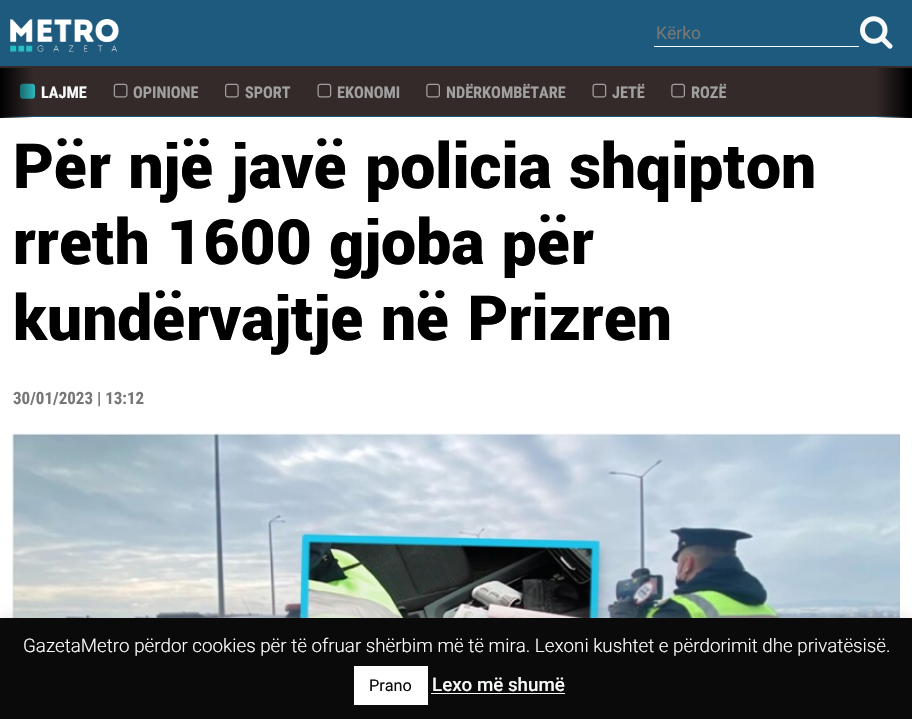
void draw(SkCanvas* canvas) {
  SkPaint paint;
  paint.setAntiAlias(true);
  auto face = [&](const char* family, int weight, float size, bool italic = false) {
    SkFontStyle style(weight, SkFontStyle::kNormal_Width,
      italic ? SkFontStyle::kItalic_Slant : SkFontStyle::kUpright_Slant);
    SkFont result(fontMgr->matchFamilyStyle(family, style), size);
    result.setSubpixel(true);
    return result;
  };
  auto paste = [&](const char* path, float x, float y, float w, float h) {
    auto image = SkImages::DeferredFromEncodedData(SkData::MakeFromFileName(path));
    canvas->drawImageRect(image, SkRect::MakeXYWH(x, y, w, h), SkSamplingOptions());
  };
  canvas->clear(0xffffffff);
  paint.setColor(0xff1e5a7e);
  canvas->drawRect(SkRect::MakeXYWH(0, 0, 912, 66), paint);
  canvas->drawRect(SkRect::MakeXYWH(0, 116, 912, 1), paint);
  paste("img/1.png", 10, 19, 109, 33);
  paint.setColor(0xfff7f9fb);
  canvas->drawRect(SkRect::MakeXYWH(654, 46, 205, 1), paint);
  paste("img/2.png", 860, 16, 33, 33);
  paint.setColor(0xff352a2a);
  canvas->drawRect(SkRect::MakeXYWH(0, 66, 912, 50), paint);
  paste("img/3.png", 20, 83, 15, 16);
  {
    const SkColor colors[] = {0x00000000, 0xff000000};
    const float stops[] = {0.1f, 1};
    const SkPoint ends[] = {{38, 93}, {0, 93}};
    paint.setShader(SkGradientShader::MakeLinear(ends, colors, stops, 2, SkTileMode::kClamp));
    paint.setAlpha(255);
  }
  canvas->drawRect(SkRect::MakeXYWH(0, 68, 33, 50), paint);
  paste("img/4.png", 113, 83, 15, 15);
  paste("img/5.png", 225, 83, 14, 15);
  paste("img/6.png", 317, 83, 15, 15);
  paste("img/7.png", 426, 83, 14, 15);
  paste("img/6.png", 592, 83, 15, 15);
  paste("img/7.png", 671, 83, 14, 15);
  {
    const SkColor colors[] = {0xff000000, 0x00000000};
    const float stops[] = {0.1f, 1};
    const SkPoint ends[] = {{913, 93}, {875, 93}};
    paint.setShader(SkGradientShader::MakeLinear(ends, colors, stops, 2, SkTileMode::kClamp));
    paint.setAlpha(255);
  }
  canvas->drawRect(SkRect::MakeXYWH(876, 68, 36, 50), paint);
  paste("img/8.png", 12, 433, 888, 185);
  paint.setShader(nullptr);
  paint.setColor(0x4dacabab);
  paint.setMaskFilter(SkMaskFilter::MakeBlur(kNormal_SkBlurStyle, 6));
  canvas->drawRect(SkRect::MakeXYWH(0, 616, 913, 103), paint);
  paint.setMaskFilter(nullptr);
  {
    const struct { float x, y, w, h; SkColor color; } items[] = {
      {0, 618, 912, 101, 0xff0a0a0a},
      {354, 666, 74, 39, 0xffffffff},
      {431, 693, 134, 1, 0xfff9f9f9},
    };
    for (auto [x, y, w, h, color] : items) {
      paint.setColor(color);
      canvas->drawRect(SkRect::MakeXYWH(x, y, w, h), paint);
    }
  }
  auto f0 = face("Roboto", 400, 17.5f);
  paint.setColor(0xff777777);
  canvas->drawString("Kërko", 656, 39, f0, paint);
  auto f1 = face("Roboto Condensed", 700, 16.25f);
  paint.setColor(0xfff7f9fa);
  canvas->drawString("LAJME", 41, 98, f1, paint);
  paint.setColor(0xffa0a0a0);
  {
    const struct { const char* s; float x, y; } items[] = {
      {"OPINIONE", 133, 98},
      {"SPORT", 245, 98},
      {"EKONOMI", 337, 98},
      {"NDËRKOMBËTARE", 446, 98},
      {"JETË", 612, 98},
      {"ROZË", 691, 98},
    };
    for (auto [s, x, y] : items) {
      canvas->drawString(s, x, y, f1, paint);
    }
  }
  auto f2 = face("Yantramanav", 900, 69.3f);
  paint.setColor(0xff000000);
  {
    const struct { const char* s; float x, y; } items[] = {
      {"Për një javë policia shqipton", 13, 188},
      {"rreth 1600 gjoba për", 13, 264},
      {"kundërvajtje në Prizren", 13, 340},
    };
    for (auto [s, x, y] : items) {
      canvas->drawString(s, x, y, f2, paint);
    }
  }
  auto f3 = face("Roboto Condensed", 700, 17);
  paint.setColor(0xff777777);
  canvas->drawString("30/01/2023 | 13:12", 13, 404, f3, paint);
  auto f4 = face("Roboto", 300, 18.75f);
  paint.setColor(0xffffffff);
  canvas->drawString("GazetaMetro përdor cookies për të ofruar shërbim më të mira. Lexoni kushtet e përdorimit dhe privatësisë.", 23, 652, f4, paint);
  auto f5 = face("Roboto", 400, 16.25f);
  paint.setColor(0xff0a0a0a);
  canvas->drawString("Prano", 369, 691, f5, paint);
  auto f6 = face("Roboto", 500, 18.75f);
  paint.setColor(0xfff7f9fa);
  canvas->drawString("Lexo më shumë", 432, 691, f6, paint);
}
